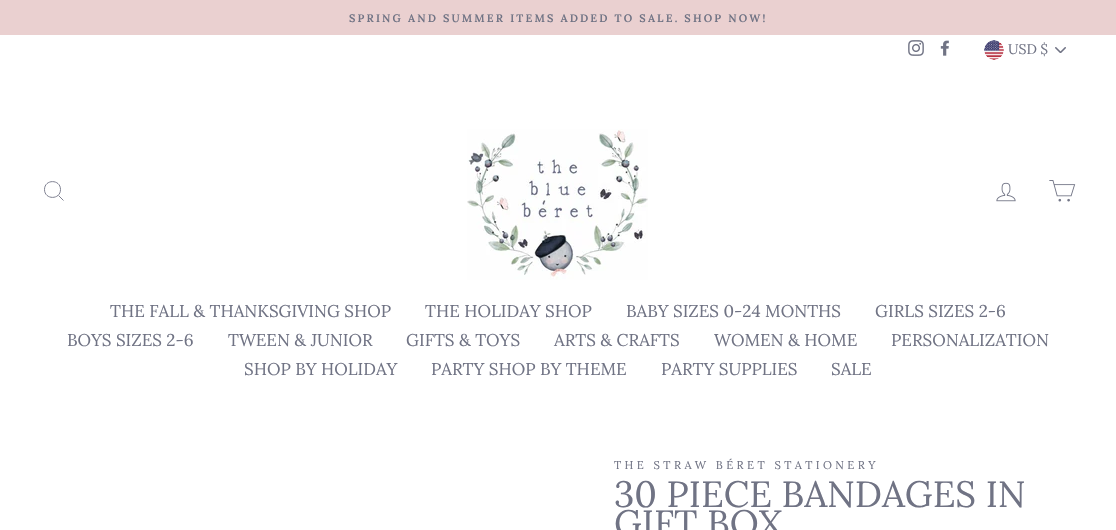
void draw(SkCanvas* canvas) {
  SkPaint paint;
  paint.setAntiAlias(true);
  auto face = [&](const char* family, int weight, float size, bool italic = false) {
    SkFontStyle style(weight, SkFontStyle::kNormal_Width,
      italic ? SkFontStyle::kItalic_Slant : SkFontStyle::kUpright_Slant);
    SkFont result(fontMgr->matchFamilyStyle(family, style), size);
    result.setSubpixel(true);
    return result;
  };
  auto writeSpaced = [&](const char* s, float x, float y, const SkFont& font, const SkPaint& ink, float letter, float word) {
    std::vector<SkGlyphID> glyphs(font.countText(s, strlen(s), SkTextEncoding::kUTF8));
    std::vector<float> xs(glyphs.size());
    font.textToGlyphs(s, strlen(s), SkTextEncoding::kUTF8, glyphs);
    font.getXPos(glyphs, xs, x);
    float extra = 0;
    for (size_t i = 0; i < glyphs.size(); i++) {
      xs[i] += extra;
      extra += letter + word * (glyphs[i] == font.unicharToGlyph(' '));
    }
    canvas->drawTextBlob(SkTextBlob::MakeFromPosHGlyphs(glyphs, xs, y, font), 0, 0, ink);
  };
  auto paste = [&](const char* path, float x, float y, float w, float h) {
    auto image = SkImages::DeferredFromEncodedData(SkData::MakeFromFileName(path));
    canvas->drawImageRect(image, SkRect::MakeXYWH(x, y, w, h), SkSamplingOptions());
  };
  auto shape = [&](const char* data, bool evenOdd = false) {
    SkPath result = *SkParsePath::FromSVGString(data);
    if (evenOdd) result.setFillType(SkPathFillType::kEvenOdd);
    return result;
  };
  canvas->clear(0xffffffff);
  paint.setColor(0xffead0d0);
  canvas->drawRect(SkRect::MakeXYWH(0, 0, 1116, 35), paint);
  paste("img/1.png", 908, 40, 16, 16);
  paste("img/2.png", 940, 40, 9, 16);
  paste("img/3.png", 1055, 47, 11, 6);
  paste("img/4.png", 984, 40, 20, 20);
  paint.setStroke(true);
  paint.setStrokeWidth(0.9f);
  paint.setColor(0xff707384);
  canvas->drawPath(shape("M60.5 189.5C60.5 200 44.5 200 44.5 189.5C44.5 179 60.5 179 60.5 189.5ZM63.5 200.5L58.5 195.5"), paint);
  paste("img/5.png", 467, 129, 181, 151);
  paste("img/6.png", 996, 182, 20, 20);
  paste("img/7.png", 1049, 180, 27, 22);
  auto f0 = face("Lora", 600, 10.85f);
  paint.setStroke(false);
  writeSpaced("SPRING AND SUMMER ITEMS ADDED TO SALE. SHOP NOW!", 349, 22, f0, paint, 2.15f, 0);
  auto f1 = face("Lora", 400, 14);
  canvas->drawString("USD $", 1008, 54, f1, paint);
  auto f2 = face("Lora", 400, 17);
  {
    const struct { const char* s; float x, y; } items[] = {
      {"THE FALL & THANKSGIVING SHOP", 110, 317},
      {"THE HOLIDAY SHOP", 425, 317},
      {"BABY SIZES 0-24 MONTHS", 626, 317},
      {"GIRLS SIZES 2-6", 875, 317},
      {"BOYS SIZES 2-6", 67, 346},
      {"TWEEN & JUNIOR", 228, 346},
      {"GIFTS & TOYS", 406, 346},
      {"ARTS & CRAFTS", 554, 346},
      {"WOMEN & HOME", 714, 346},
      {"PERSONALIZATION", 891, 346},
      {"SHOP BY HOLIDAY", 244, 375},
      {"PARTY SHOP BY THEME", 431, 375},
      {"PARTY SUPPLIES", 661, 375},
      {"SALE", 831, 375},
    };
    for (auto [s, x, y] : items) {
      canvas->drawString(s, x, y, f2, paint);
    }
  }
  auto f3 = face("Lora", 400, 11.25f);
  writeSpaced("THE STRAW BÉRET STATIONERY", 614, 469, f3, paint, 3.4f, 0);
  auto f4 = face("Lora", 400, 36.5f);
  canvas->drawString("30 PIECE BANDAGES IN", 614, 507, f4, paint);
  canvas->drawString("GIFT BOX", 614, 536, f4, paint);
}
